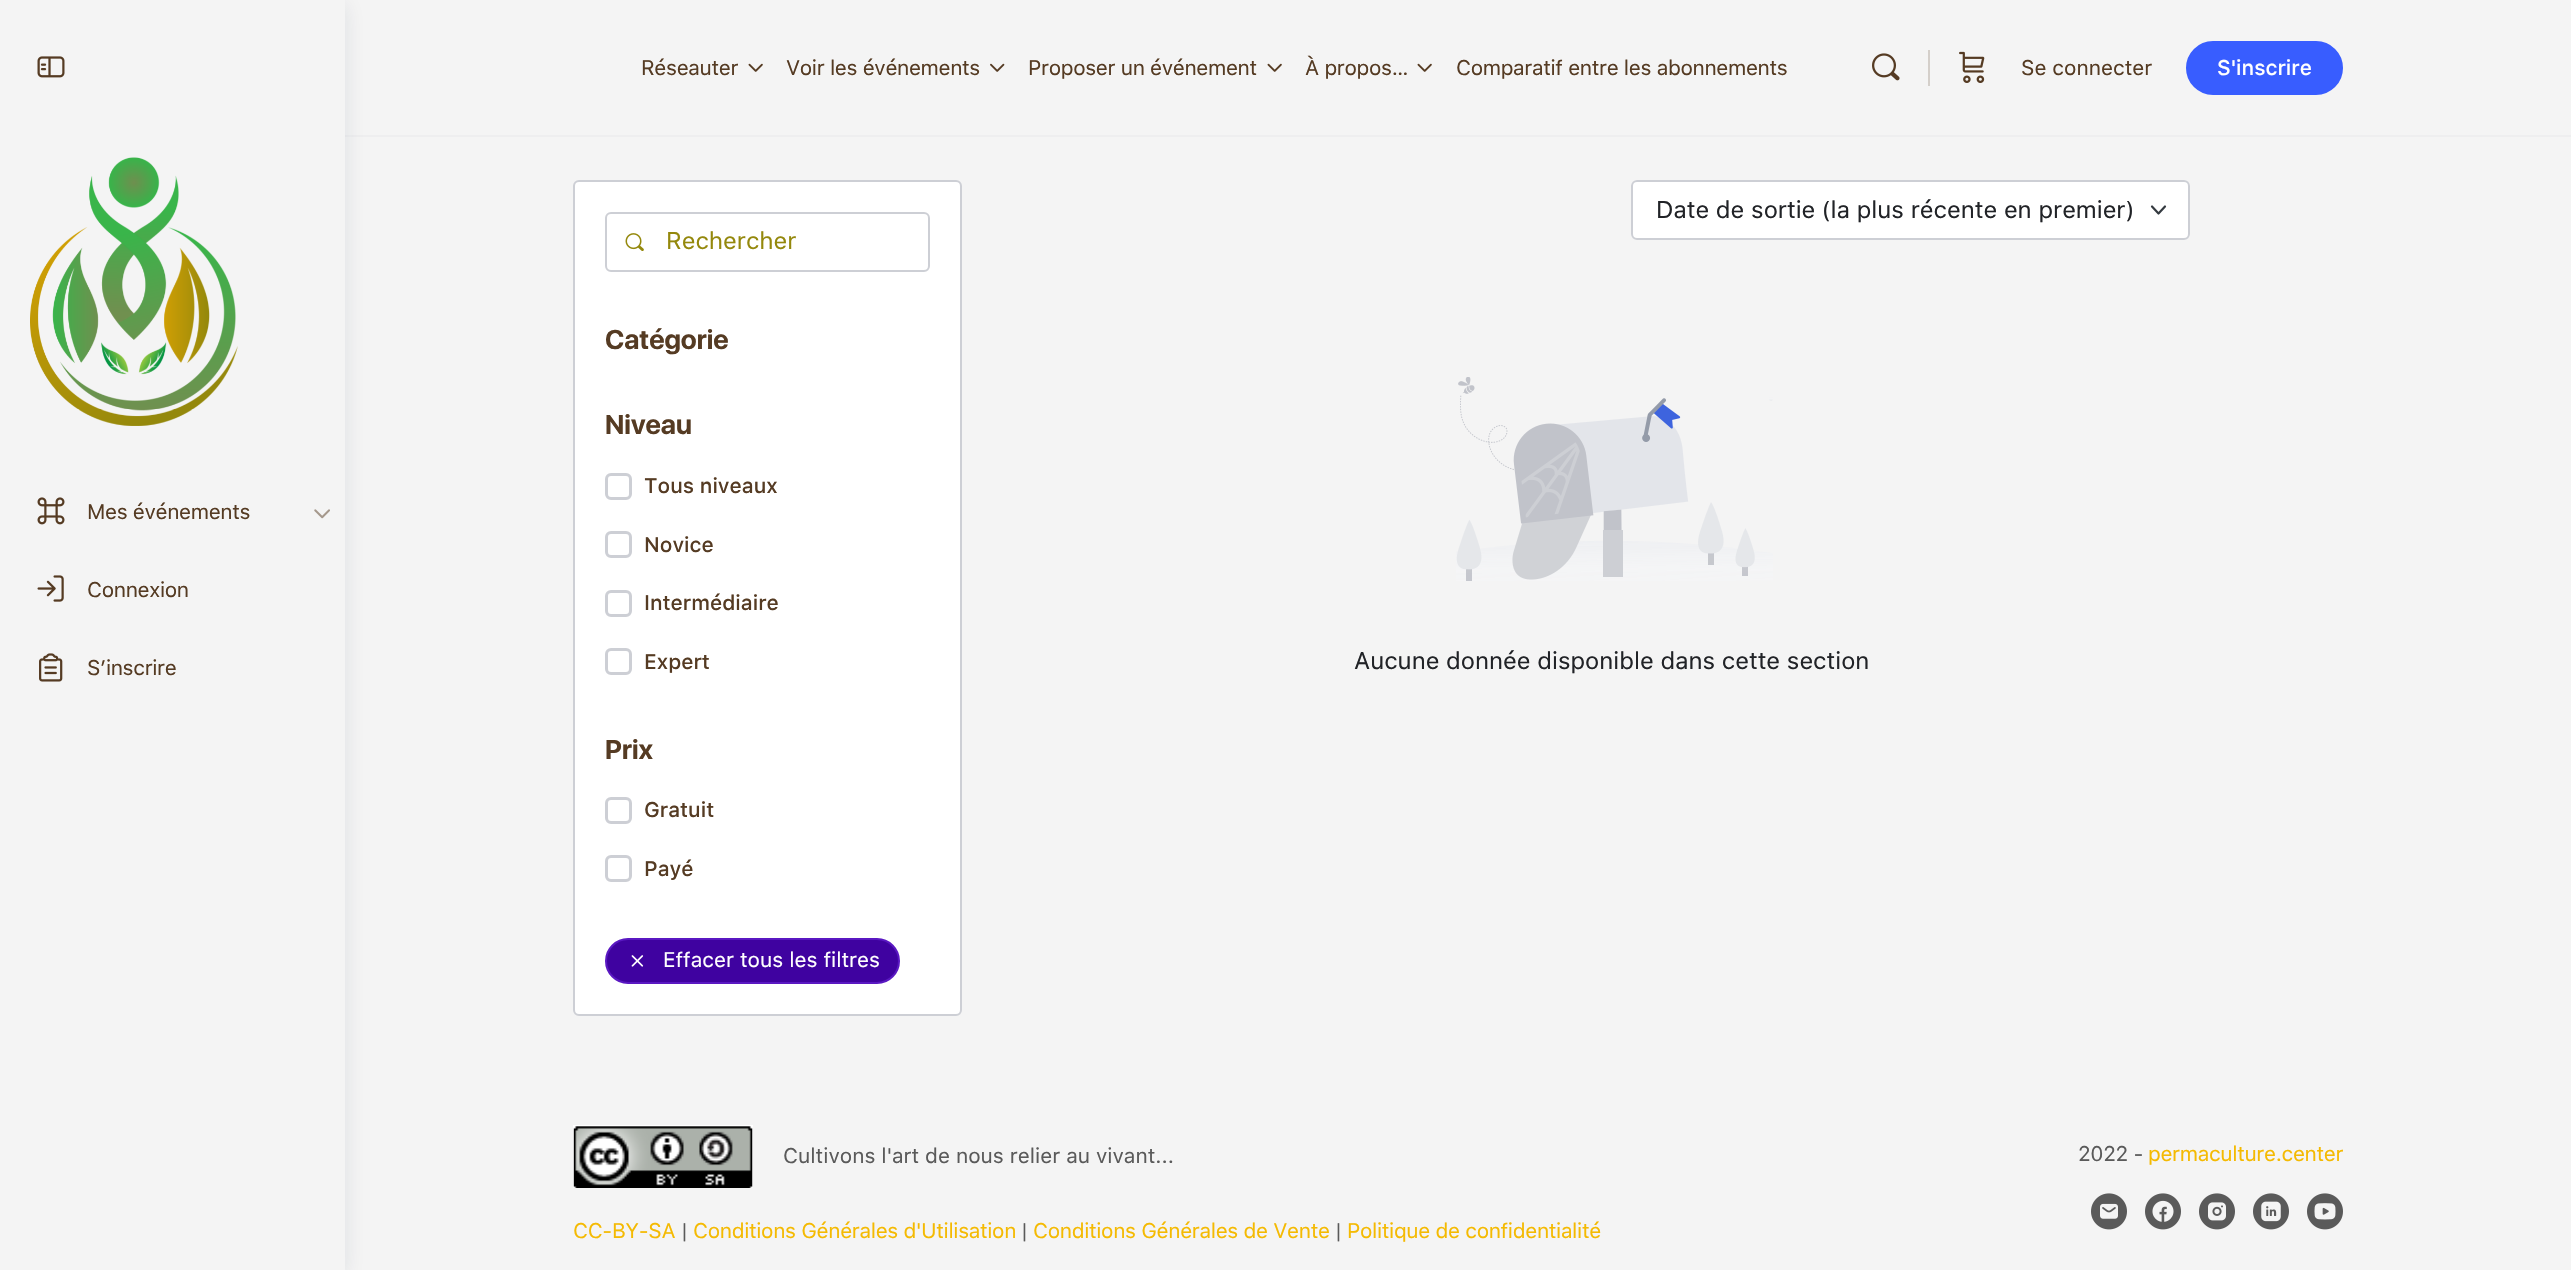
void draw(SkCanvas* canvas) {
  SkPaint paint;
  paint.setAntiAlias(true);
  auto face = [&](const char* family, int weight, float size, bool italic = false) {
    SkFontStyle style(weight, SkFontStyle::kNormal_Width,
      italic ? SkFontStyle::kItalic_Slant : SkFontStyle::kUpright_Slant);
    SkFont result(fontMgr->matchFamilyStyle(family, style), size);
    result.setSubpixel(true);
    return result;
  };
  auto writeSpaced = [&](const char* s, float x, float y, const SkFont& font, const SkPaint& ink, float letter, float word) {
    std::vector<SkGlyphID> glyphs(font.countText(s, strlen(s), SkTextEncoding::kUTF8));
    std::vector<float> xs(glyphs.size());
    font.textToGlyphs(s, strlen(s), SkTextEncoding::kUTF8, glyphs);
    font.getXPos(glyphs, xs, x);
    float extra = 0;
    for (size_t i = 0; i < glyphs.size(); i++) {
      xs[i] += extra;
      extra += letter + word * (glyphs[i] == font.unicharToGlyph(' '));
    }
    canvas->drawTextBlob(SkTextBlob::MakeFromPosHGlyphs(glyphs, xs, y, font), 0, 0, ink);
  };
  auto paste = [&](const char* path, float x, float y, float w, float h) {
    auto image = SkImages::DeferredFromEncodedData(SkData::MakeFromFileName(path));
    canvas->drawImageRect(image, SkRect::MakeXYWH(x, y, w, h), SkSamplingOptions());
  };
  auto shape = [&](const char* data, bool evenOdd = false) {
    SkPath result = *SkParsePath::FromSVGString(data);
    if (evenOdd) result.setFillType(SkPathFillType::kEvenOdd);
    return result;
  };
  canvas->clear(0xfff4f4f4);
  paint.setColor(0x0d8b8d9d);
  canvas->drawRect(SkRect::MakeXYWH(345, 135, 2226, 2), paint);
  paint.setColor(0x1a122b46);
  paint.setMaskFilter(SkMaskFilter::MakeBlur(kNormal_SkBlurStyle, 10));
  canvas->drawRect(SkRect::MakeXYWH(0, 5, 345, 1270), paint);
  paint.setMaskFilter(nullptr);
  paint.setColor(0xfff4f4f4);
  canvas->drawRect(SkRect::MakeXYWH(0, 0, 345, 1270), paint);
  paste("img/1.png", 37, 56, 28, 22);
  paste("img/2.png", 30, 157, 208, 269);
  paste("img/3.png", 37, 497, 28, 28);
  paste("img/4.png", 314, 509, 16, 10);
  paste("img/5.png", 37, 575, 27, 27);
  paste("img/6.png", 39, 653, 24, 29);
  paste("img/7.png", 748, 63, 15, 9);
  paste("img/8.png", 990, 63, 15, 9);
  paste("img/7.png", 1267, 63, 15, 9);
  paste("img/7.png", 1417, 63, 15, 9);
  paste("img/9.png", 1872, 53, 28, 28);
  paint.setColor(0xffd4cfca);
  canvas->drawRect(SkRect::MakeXYWH(1928, 50, 2, 36), paint);
  paste("img/10.png", 1959, 51, 26, 32);
  paint.setColor(0xff385dff);
  canvas->drawRoundRect(SkRect::MakeXYWH(2187, 42, 155, 52), 26, 26, paint);
  paint.setStroke(true);
  paint.setStrokeWidth(2);
  canvas->drawRoundRect(SkRect::MakeXYWH(2187, 42, 155, 52), 26, 26, paint);
  paint.setStroke(false);
  paint.setColor(0xffffffff);
  canvas->drawRoundRect(SkRect::MakeXYWH(574, 181, 387, 834), 5, 5, paint);
  paint.setStroke(true);
  paint.setColor(0xffcdcfd5);
  canvas->drawRoundRect(SkRect::MakeXYWH(574, 181, 387, 834), 5, 5, paint);
  canvas->drawRoundRect(SkRect::MakeXYWH(606, 213, 323, 58), 5, 5, paint);
  paste("img/11.png", 625, 233, 19, 18);
  paint.setStrokeWidth(3);
  canvas->drawRoundRect(SkRect::MakeXYWH(606.5f, 474.5f, 24, 24), 4.5f, 4.5f, paint);
  canvas->drawRoundRect(SkRect::MakeXYWH(606.5f, 532.5f, 24, 24), 4.5f, 4.5f, paint);
  canvas->drawRoundRect(SkRect::MakeXYWH(606.5f, 591.5f, 24, 24), 4.5f, 4.5f, paint);
  canvas->drawRoundRect(SkRect::MakeXYWH(606.5f, 649.5f, 24, 24), 4.5f, 4.5f, paint);
  canvas->drawRoundRect(SkRect::MakeXYWH(606.5f, 798.5f, 24, 24), 4.5f, 4.5f, paint);
  canvas->drawRoundRect(SkRect::MakeXYWH(606.5f, 856.5f, 24, 24), 4.5f, 4.5f, paint);
  paint.setStroke(false);
  paint.setColor(0xff3f02a0);
  canvas->drawRoundRect(SkRect::MakeXYWH(606, 939, 293, 44), 22, 22, paint);
  paint.setStroke(true);
  paint.setStrokeWidth(2);
  paint.setColor(0xff5a18c2);
  canvas->drawRoundRect(SkRect::MakeXYWH(606, 939, 293, 44), 22, 22, paint);
  paste("img/12.png", 631, 955, 13, 12);
  paint.setStroke(false);
  paint.setColor(0xffffffff);
  canvas->drawRoundRect(SkRect::MakeXYWH(1631, 180, 559, 60), 6, 6, paint);
  paint.setStroke(true);
  paint.setStrokeWidth(2.2f);
  paint.setStrokeCap(SkPaint::kRound_Cap);
  paint.setStrokeJoin(SkPaint::kRound_Join);
  paint.setColor(0xff343a40);
  canvas->drawPath(shape("M2152 206.5L2158.5 213.5L2165 206.5"), paint);
  paint.setStrokeWidth(2);
  paint.setStrokeCap(SkPaint::kButt_Cap);
  paint.setStrokeJoin(SkPaint::kMiter_Join);
  paint.setColor(0xffcdcfd5);
  canvas->drawRoundRect(SkRect::MakeXYWH(1632, 181, 557, 58), 5, 5, paint);
  paste("img/13.png", 1456, 377, 317, 204);
  paste("img/14.png", 573, 1125, 180, 63);
  paste("img/15.png", 2091, 1193, 36, 37);
  paste("img/16.png", 2145, 1193, 36, 37);
  paste("img/17.png", 2199, 1193, 36, 37);
  paste("img/18.png", 2253, 1193, 36, 37);
  paste("img/19.png", 2307, 1193, 36, 37);
  auto f0 = face("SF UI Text", 400, 21);
  paint.setStroke(false);
  paint.setColor(0xff553b23);
  {
    const struct { const char* s; float x, y; } items[] = {
      {"Mes événements", 87, 519},
      {"Connexion", 87, 597},
      {"S’inscrire", 87, 675},
      {"Réseauter", 641, 75},
      {"Voir les événements", 786, 75},
      {"Proposer un événement", 1028, 75},
      {"À propos…", 1305, 75},
      {"Comparatif entre les abonnements", 1456, 75},
    };
    for (auto [s, x, y] : items) {
      writeSpaced(s, x, y, f0, paint, -0.35f, 0);
    }
  }
  canvas->drawString("Se connecter", 2021, 75, f0, paint);
  auto f1 = face("SF UI Text", 500, 21);
  paint.setColor(0xffffffff);
  canvas->drawString("S'inscrire", 2217, 75, f1, paint);
  auto f2 = face("SF UI Text", 400, 24);
  paint.setColor(0xff94880c);
  canvas->drawString("Rechercher", 666, 249, f2, paint);
  auto f3 = face("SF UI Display", 700, 27);
  paint.setColor(0xff553b23);
  canvas->drawString("Catégorie", 605, 349, f3, paint);
  canvas->drawString("Niveau", 605, 434, f3, paint);
  {
    const struct { const char* s; float x, y; } items[] = {
      {"Tous niveaux", 644, 493},
      {"Novice", 644, 552},
      {"Intermédiaire", 644, 610},
      {"Expert", 644, 669},
    };
    for (auto [s, x, y] : items) {
      canvas->drawString(s, x, y, f1, paint);
    }
  }
  canvas->drawString("Prix", 605, 759, f3, paint);
  canvas->drawString("Gratuit", 644, 817, f1, paint);
  canvas->drawString("Payé", 644, 876, f1, paint);
  paint.setColor(0xffffffff);
  canvas->drawString("Effacer tous les filtres", 663, 967, f0, paint);
  paint.setColor(0xff212327);
  canvas->drawString("Date de sortie (la plus récente en premier)", 1656, 218, f2, paint);
  canvas->drawString("Aucune donnée disponible dans cette section", 1354, 669, f2, paint);
  paint.setColor(0xff5a5a5a);
  canvas->drawString("Cultivons l'art de nous relier au vivant...", 783, 1163, f0, paint);
  paint.setColor(0xfff4ba02);
  writeSpaced("CC-BY-SA", 573, 1238, f0, paint, -0.35f, 0);
  paint.setColor(0xff5a5a5a);
  writeSpaced("|", 681, 1238, f0, paint, -0.35f, 0);
  paint.setColor(0xfff4ba02);
  writeSpaced("Conditions Générales d'Utilisation", 693, 1238, f0, paint, -0.35f, 0);
  paint.setColor(0xff5a5a5a);
  writeSpaced("|", 1021, 1238, f0, paint, -0.35f, 0);
  paint.setColor(0xfff4ba02);
  writeSpaced("Conditions Générales de Vente", 1033, 1238, f0, paint, -0.35f, 0);
  paint.setColor(0xff5a5a5a);
  writeSpaced("|", 1335, 1238, f0, paint, -0.35f, 0);
  paint.setColor(0xfff4ba02);
  writeSpaced("Politique de confidentialité", 1347, 1238, f0, paint, -0.35f, 0);
  paint.setColor(0xff5a5a5a);
  writeSpaced("2022 -", 2078, 1161, f0, paint, -0.35f, 0);
  paint.setColor(0xfff4ba02);
  writeSpaced("permaculture.center", 2148, 1161, f0, paint, -0.35f, 0);
}
